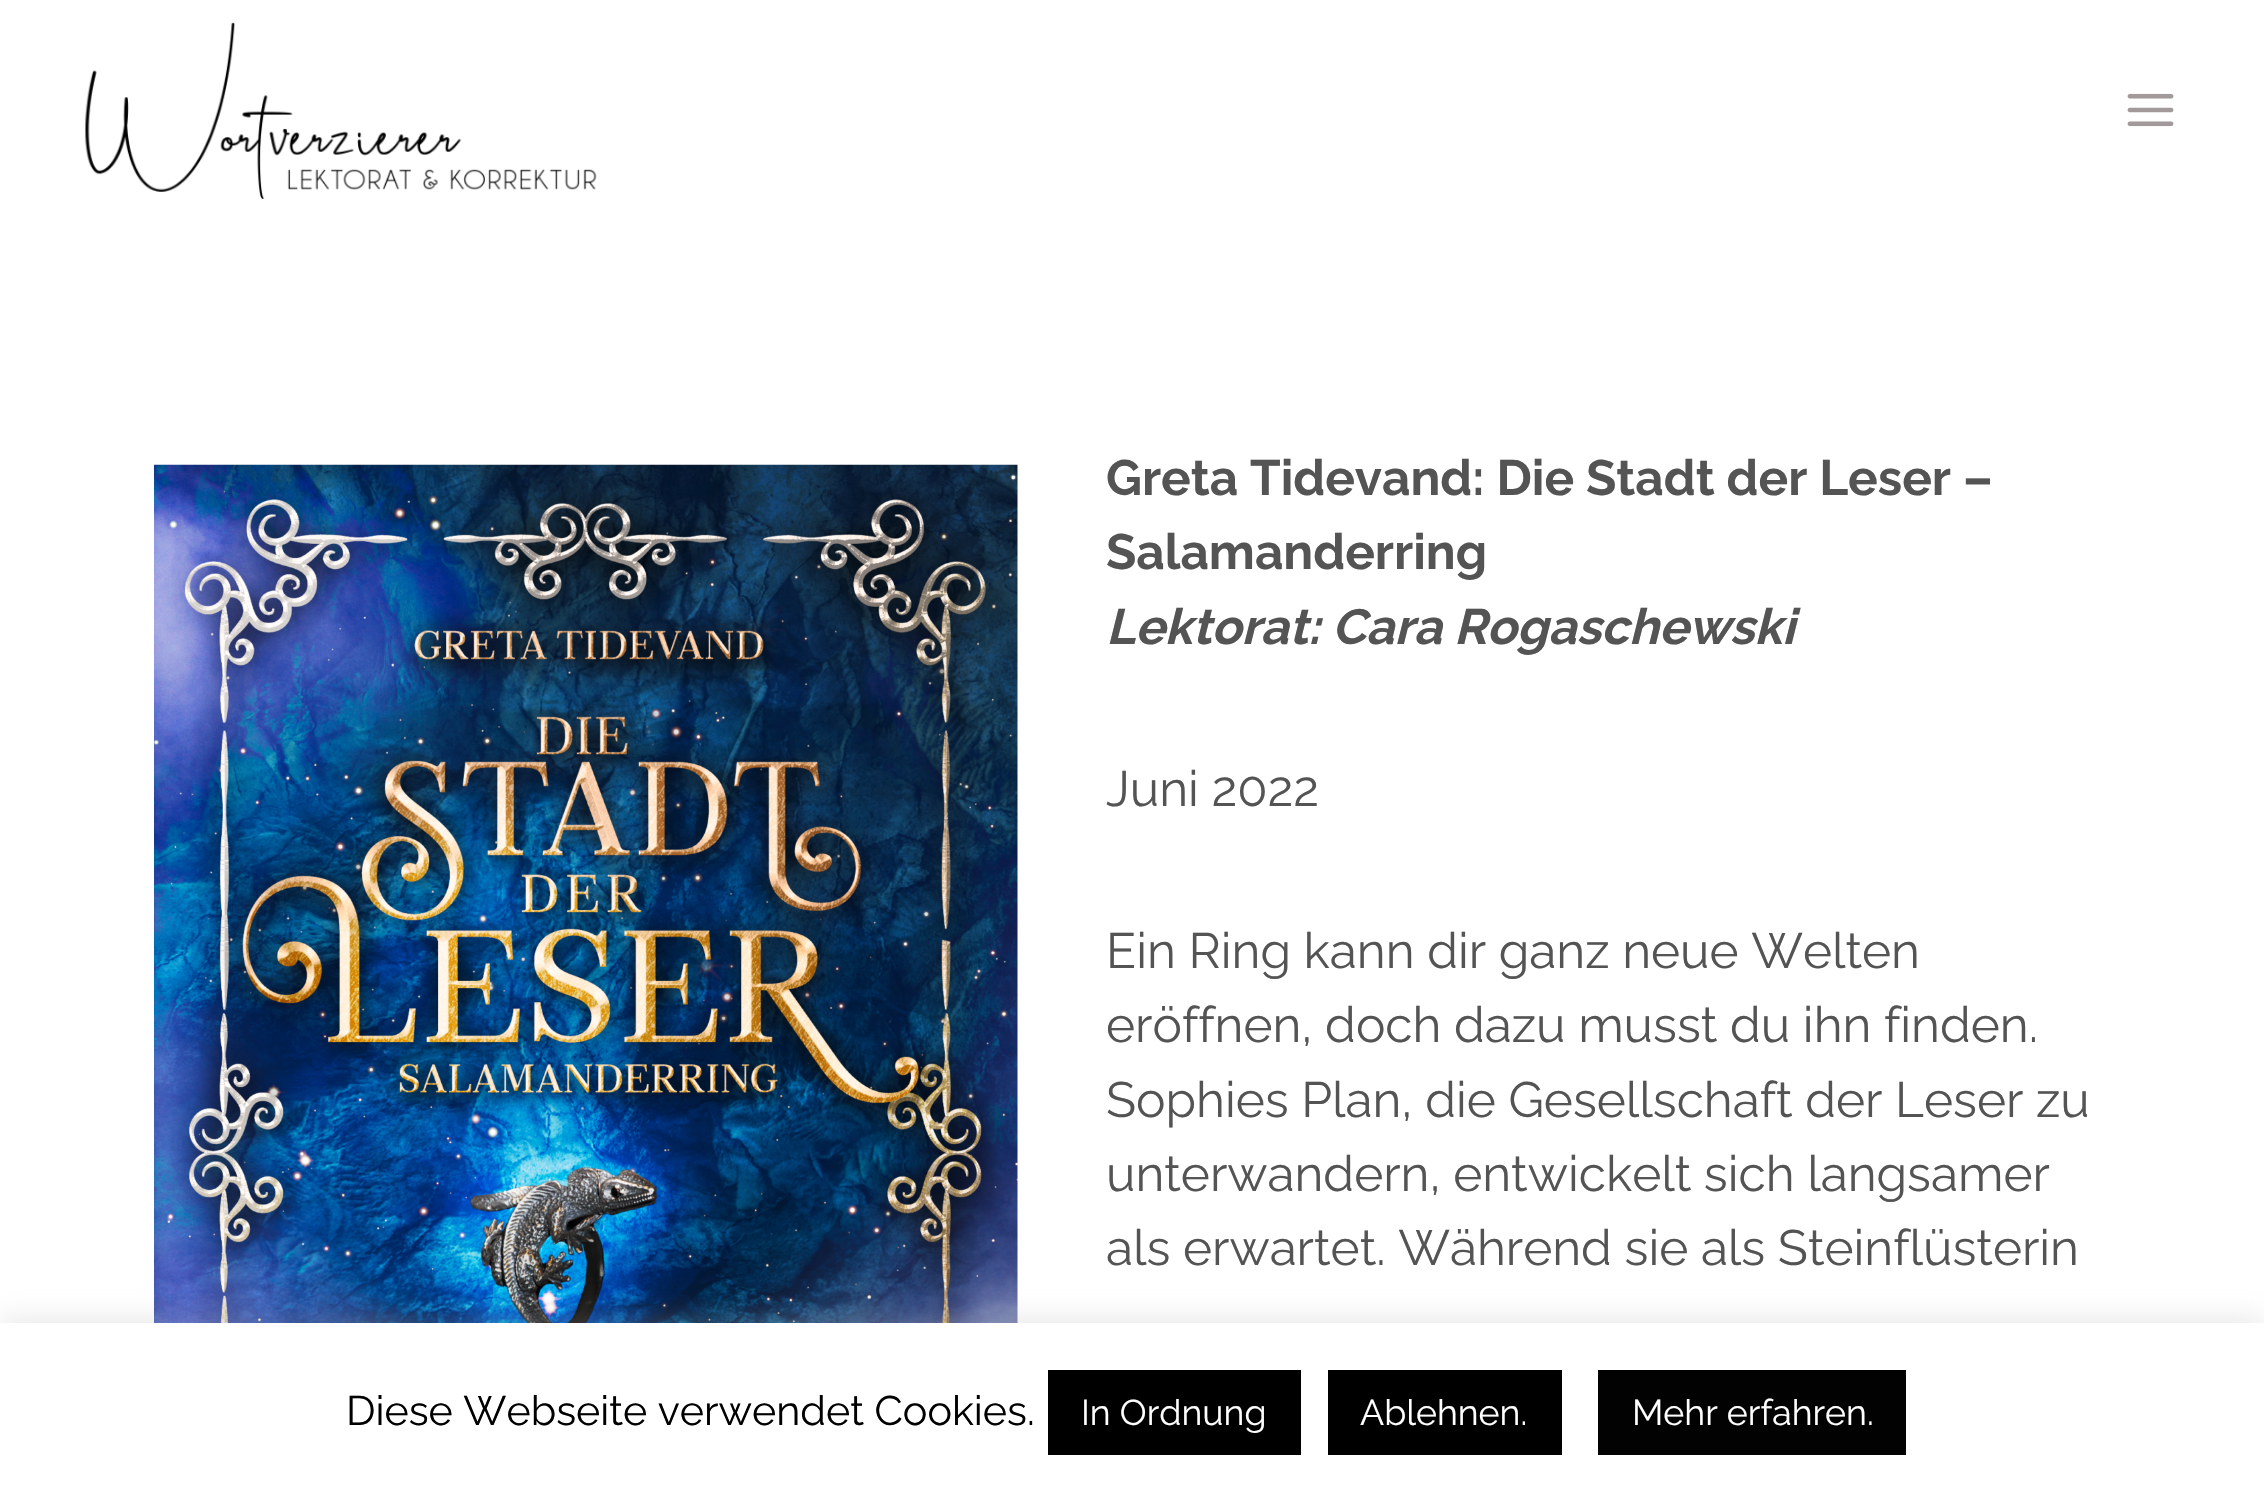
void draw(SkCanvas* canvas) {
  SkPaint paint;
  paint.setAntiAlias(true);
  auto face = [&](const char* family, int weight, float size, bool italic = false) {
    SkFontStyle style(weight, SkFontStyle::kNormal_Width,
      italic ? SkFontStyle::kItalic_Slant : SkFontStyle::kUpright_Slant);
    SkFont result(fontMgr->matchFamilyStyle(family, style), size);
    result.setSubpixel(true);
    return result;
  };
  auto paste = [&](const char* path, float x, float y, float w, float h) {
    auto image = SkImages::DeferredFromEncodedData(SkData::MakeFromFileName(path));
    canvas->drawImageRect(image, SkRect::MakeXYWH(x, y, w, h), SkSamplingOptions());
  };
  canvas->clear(0xffffffff);
  paste("img/1.png", 84, 22, 513, 177);
  paste("img/2.png", 2127, 93, 47, 34);
  paste("img/3.png", 154, 464, 864, 859);
  paint.setColor(0x4dacabab);
  paint.setMaskFilter(SkMaskFilter::MakeBlur(kNormal_SkBlurStyle, 14));
  canvas->drawRect(SkRect::MakeXYWH(0, 1320, 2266, 179), paint);
  paint.setMaskFilter(nullptr);
  {
    const struct { float x, y, w, h; SkColor color; } items[] = {
      {0, 1323, 2264, 178, 0xffffffff},
      {1048, 1370, 253, 85, 0xff000000},
      {1328, 1370, 234, 85, 0xff000000},
      {1598, 1370, 308, 85, 0xff020202},
    };
    for (auto [x, y, w, h, color] : items) {
      paint.setColor(color);
      canvas->drawRect(SkRect::MakeXYWH(x, y, w, h), paint);
    }
  }
  auto f0 = face("Raleway", 700, 49.5f);
  paint.setColor(0xff545454);
  canvas->drawString("Greta Tidevand: Die Stadt der Leser –", 1106, 495, f0, paint);
  canvas->drawString("Salamanderring", 1106, 569, f0, paint);
  auto f1 = face("Raleway", 700, 49.5f, true);
  canvas->drawString("Lektorat: Cara Rogaschewski", 1106, 644, f1, paint);
  auto f2 = face("Raleway", 400, 49.5f);
  {
    const struct { const char* s; float x, y; } items[] = {
      {"Juni 2022", 1106, 806},
      {"Ein Ring kann dir ganz neue Welten", 1106, 968},
      {"eröffnen, doch dazu musst du ihn finden.", 1106, 1042},
      {"Sophies Plan, die Gesellschaft der Leser zu", 1106, 1117},
      {"unterwandern, entwickelt sich langsamer", 1106, 1191},
      {"als erwartet. Während sie als Steinflüsterin", 1106, 1265},
    };
    for (auto [s, x, y] : items) {
      canvas->drawString(s, x, y, f2, paint);
    }
  }
  auto f3 = face("Raleway", 400, 41.25f);
  paint.setColor(0xff000000);
  canvas->drawString("Diese Webseite verwendet Cookies.", 346, 1425, f3, paint);
  auto f4 = face("Raleway", 400, 35.75f);
  paint.setColor(0xffffffff);
  {
    const struct { const char* s; float x, y; } items[] = {
      {"In Ordnung", 1081, 1425},
      {"Ablehnen.", 1360, 1425},
      {"Mehr erfahren.", 1632, 1425},
    };
    for (auto [s, x, y] : items) {
      canvas->drawString(s, x, y, f4, paint);
    }
  }
}
